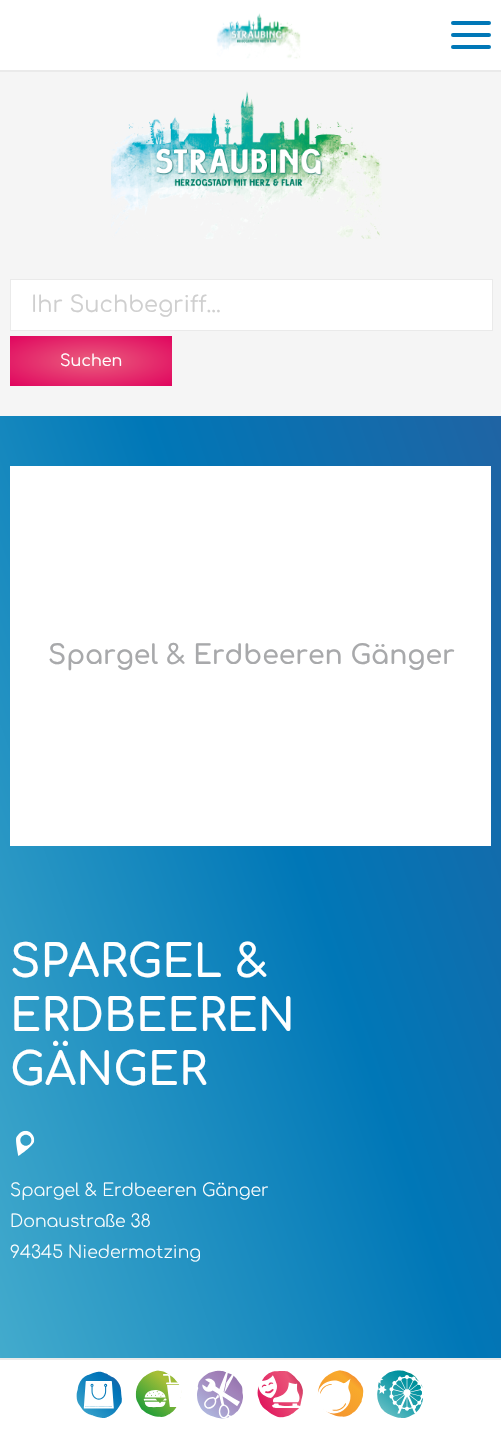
void draw(SkCanvas* canvas) {
  SkPaint paint;
  paint.setAntiAlias(true);
  auto face = [&](const char* family, int weight, float size, bool italic = false) {
    SkFontStyle style(weight, SkFontStyle::kNormal_Width,
      italic ? SkFontStyle::kItalic_Slant : SkFontStyle::kUpright_Slant);
    SkFont result(fontMgr->matchFamilyStyle(family, style), size);
    result.setSubpixel(true);
    return result;
  };
  auto paste = [&](const char* path, float x, float y, float w, float h) {
    auto image = SkImages::DeferredFromEncodedData(SkData::MakeFromFileName(path));
    canvas->drawImageRect(image, SkRect::MakeXYWH(x, y, w, h), SkSamplingOptions());
  };
  canvas->clear(0xfff5f5f5);
  paint.setColor(0xffffffff);
  canvas->drawRect(SkRect::MakeXYWH(0, 0, 501, 70), paint);
  paint.setColor(0xffeaeaea);
  canvas->drawRect(SkRect::MakeXYWH(0, 70, 501, 2), paint);
  paste("img/1.png", 216, 13, 85, 46);
  paint.setColor(0xff0077b7);
  canvas->drawRoundRect(SkRect::MakeXYWH(451, 21, 40, 4), 2, 2, paint);
  canvas->drawRoundRect(SkRect::MakeXYWH(451, 33, 40, 4), 2, 2, paint);
  canvas->drawRoundRect(SkRect::MakeXYWH(451, 45, 40, 4), 2, 2, paint);
  paste("img/2.png", 111, 91, 271, 148);
  paint.setColor(0xffffffff);
  canvas->drawRect(SkRect::MakeXYWH(10.5f, 279.5f, 482, 51), paint);
  paint.setStroke(true);
  paint.setStrokeWidth(1);
  paint.setColor(0xffeaeaea);
  canvas->drawRect(SkRect::MakeXYWH(10.5f, 279.5f, 482, 51), paint);
  paint.setStroke(false);
  {
    const SkColor colors[] = {0xffea5e7e, 0xffe0045e};
    const float stops[] = {0, 1};
    SkMatrix m = SkMatrix::Translate(91, 361).preScale(115, 35);
    paint.setShader(SkGradientShader::MakeRadial({0, 0}, 1, colors, stops, 2, SkTileMode::kClamp, 0, &m));
    paint.setAlpha(255);
  }
  canvas->drawRect(SkRect::MakeXYWH(10, 336, 162, 50), paint);
  {
    const SkColor colors[] = {0xff47aece, 0xff0077b7, 0xff2c5c9c};
    const float stops[] = {0, 0.5f, 1};
    const SkPoint ends[] = {{-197, 878}, {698, 567}};
    paint.setShader(SkGradientShader::MakeLinear(ends, colors, stops, 3, SkTileMode::kClamp));
    paint.setAlpha(255);
  }
  canvas->drawRect(SkRect::MakeXYWH(0, 416, 501, 942), paint);
  paint.setShader(nullptr);
  paint.setColor(0xffffffff);
  canvas->drawRect(SkRect::MakeXYWH(10, 466, 481, 380), paint);
  paste("img/3.png", 16, 1130, 19, 26);
  canvas->drawRect(SkRect::MakeXYWH(0, 1360, 501, 85), paint);
  paint.setColor(0xffeaeaea);
  canvas->drawRect(SkRect::MakeXYWH(0, 1358, 501, 2), paint);
  paste("img/4.png", 76, 1371, 46, 47);
  paste("img/5.png", 135, 1370, 47, 47);
  paste("img/6.png", 197, 1370, 46, 49);
  paste("img/7.png", 257, 1371, 46, 47);
  paste("img/8.png", 317, 1370, 47, 47);
  paste("img/9.png", 377, 1370, 47, 48);
  auto f0 = face("Comfortaa", 400, 22.5f);
  paint.setColor(0xffcfcfcf);
  canvas->drawString("Ihr Suchbegriff...", 31, 312, f0, paint);
  auto f1 = face("Comfortaa", 400, 16);
  paint.setColor(0xffffffff);
  canvas->drawString("Suchen", 60, 366, f1, paint);
  auto f2 = face("Comfortaa", 600, 26.7f);
  paint.setColor(0xffa8a9ab);
  canvas->drawString("Spargel & Erdbeeren Gänger", 48, 664, f2, paint);
  auto f3 = face("Comfortaa", 600, 44.75f);
  paint.setColor(0xffffffff);
  {
    const struct { const char* s; float x, y; } items[] = {
      {"SPARGEL &", 10, 977},
      {"ERDBEEREN", 10, 1031},
      {"GÄNGER", 10, 1085},
    };
    for (auto [s, x, y] : items) {
      canvas->drawString(s, x, y, f3, paint);
    }
  }
  auto f4 = face("Comfortaa", 300, 17.3f);
  {
    const struct { const char* s; float x, y; } items[] = {
      {"Spargel & Erdbeeren Gänger", 10, 1196},
      {"Donaustraße 38", 10, 1227},
      {"94345 Niedermotzing", 10, 1258},
    };
    for (auto [s, x, y] : items) {
      canvas->drawString(s, x, y, f4, paint);
    }
  }
}
